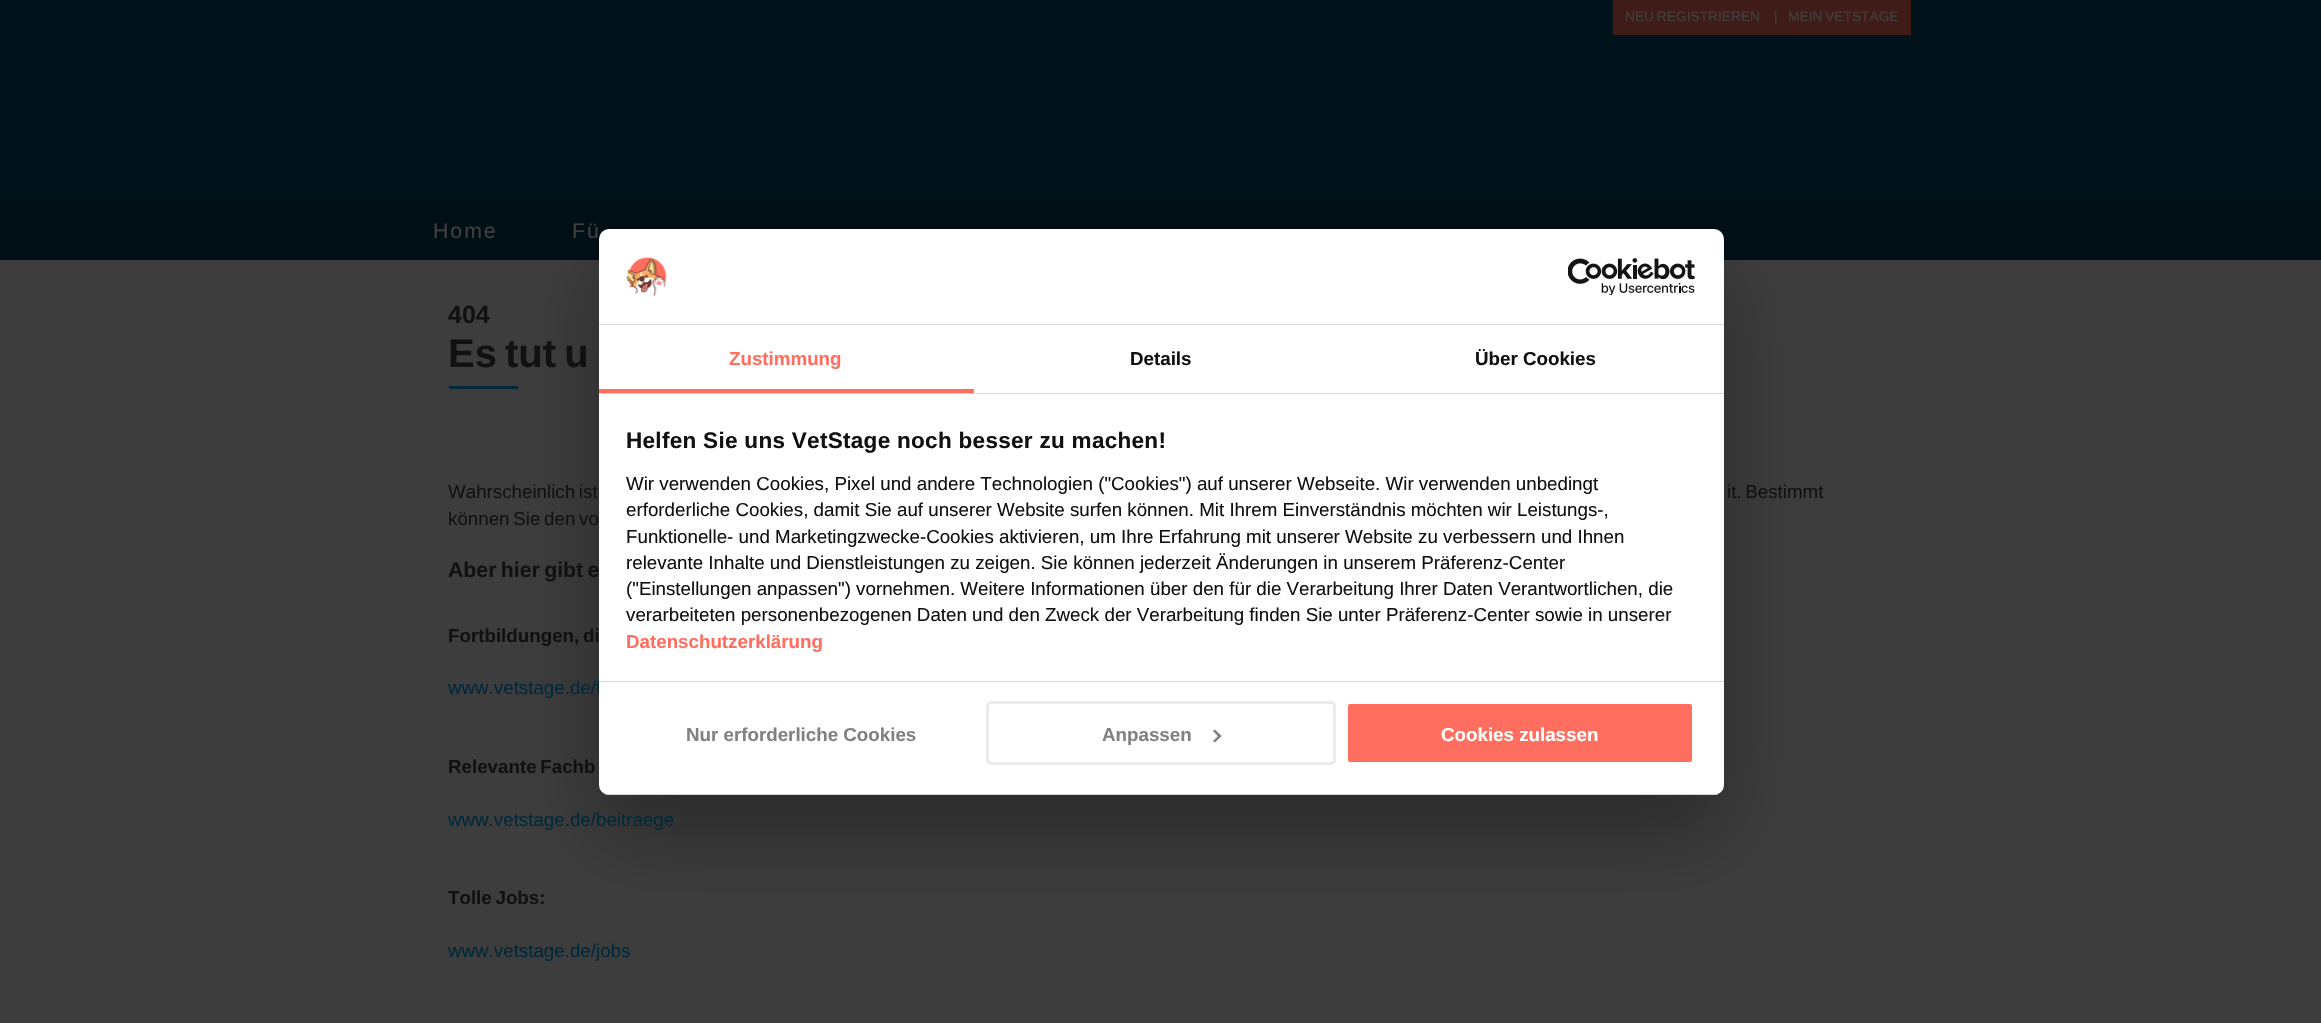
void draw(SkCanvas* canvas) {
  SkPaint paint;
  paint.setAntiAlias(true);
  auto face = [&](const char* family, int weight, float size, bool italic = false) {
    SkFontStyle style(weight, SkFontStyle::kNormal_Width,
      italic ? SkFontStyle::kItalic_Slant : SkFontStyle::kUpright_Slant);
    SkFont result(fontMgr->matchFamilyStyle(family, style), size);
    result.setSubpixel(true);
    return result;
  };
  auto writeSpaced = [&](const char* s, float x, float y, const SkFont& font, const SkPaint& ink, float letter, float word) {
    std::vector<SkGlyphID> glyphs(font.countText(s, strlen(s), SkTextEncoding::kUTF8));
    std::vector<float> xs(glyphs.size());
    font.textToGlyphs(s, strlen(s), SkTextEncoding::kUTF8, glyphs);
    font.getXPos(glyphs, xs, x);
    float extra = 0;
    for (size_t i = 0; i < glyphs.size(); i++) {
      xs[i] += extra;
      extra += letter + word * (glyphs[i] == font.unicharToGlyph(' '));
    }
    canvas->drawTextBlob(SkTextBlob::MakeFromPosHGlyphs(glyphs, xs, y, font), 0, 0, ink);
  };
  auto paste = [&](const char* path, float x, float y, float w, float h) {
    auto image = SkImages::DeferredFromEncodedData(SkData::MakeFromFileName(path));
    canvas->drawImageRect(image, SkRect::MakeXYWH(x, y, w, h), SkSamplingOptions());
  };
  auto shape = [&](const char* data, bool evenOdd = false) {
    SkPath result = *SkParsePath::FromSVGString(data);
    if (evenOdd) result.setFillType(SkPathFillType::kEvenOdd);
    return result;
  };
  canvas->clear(0xff3d3d3d);
  {
    const struct { float x, y, w, h; SkColor color; } items[] = {
      {0, 0, 2321, 200, 0xff00121a},
      {1613, 0, 298, 35, 0xff401c18},
      {0, 200, 2321, 60, 0xff000f16},
      {449, 386, 69, 3, 0xff002839},
    };
    for (auto [x, y, w, h, color] : items) {
      paint.setColor(color);
      canvas->drawRect(SkRect::MakeXYWH(x, y, w, h), paint);
    }
  }
  paint.setColor(0x4d000000);
  paint.setMaskFilter(SkMaskFilter::MakeBlur(kNormal_SkBlurStyle, 42.5f));
  canvas->drawRoundRect(SkRect::MakeXYWH(599, 269, 1125, 566), 10, 10, paint);
  paint.setMaskFilter(nullptr);
  auto f0 = face("Liberation Sans", 400, 13.75f);
  paint.setColor(0xff404040);
  writeSpaced("NEU REGISTRIEREN", 1625, 21, f0, paint, 0, -1);
  canvas->drawString("|", 1774, 21, f0, paint);
  writeSpaced("MEIN VETSTAGE", 1788, 21, f0, paint, 0, -1);
  auto f1 = face("Liberation Sans", 400, 21.25f);
  writeSpaced("Home", 433, 238, f1, paint, 2, 0);
  writeSpaced("Fü", 572, 238, f1, paint, 2, -1.5f);
  auto f2 = face("Liberation Sans", 700, 25);
  paint.setColor(0xff111111);
  canvas->drawString("404", 448, 323, f2, paint);
  auto f3 = face("Liberation Sans", 700, 40);
  writeSpaced("Es tut u", 448, 367, f3, paint, 0, -3);
  auto f4 = face("Liberation Sans", 400, 18.75f);
  {
    const struct { const char* s; float x, y; } items[] = {
      {"Wahrscheinlich ist", 448, 498},
      {"it. Bestimmt", 1727, 498},
      {"können Sie den vo", 448, 525},
    };
    for (auto [s, x, y] : items) {
      writeSpaced(s, x, y, f4, paint, 0, -1.5f);
    }
  }
  auto f5 = face("Liberation Sans", 700, 21.25f);
  writeSpaced("Aber hier gibt e", 448, 577, f5, paint, 0, -1.5f);
  auto f6 = face("Liberation Sans", 700, 18.75f);
  writeSpaced("Fortbildungen, di", 448, 642, f6, paint, 0, -1.5f);
  paint.setColor(0xff002839);
  canvas->drawString("www.vetstage.de/f", 448, 694, f4, paint);
  paint.setColor(0xff111111);
  writeSpaced("Relevante Fachb", 448, 773, f6, paint, 0, -1.5f);
  paint.setColor(0xff002839);
  canvas->drawString("www.vetstage.de/beitraege", 448, 826, f4, paint);
  paint.setColor(0xff111111);
  writeSpaced("Tolle Jobs:", 448, 904, f6, paint, 0, -1.5f);
  paint.setColor(0xff002839);
  canvas->drawString("www.vetstage.de/jobs", 448, 957, f4, paint);
  paint.setColor(0xffffffff);
  canvas->drawRoundRect(SkRect::MakeXYWH(599, 229, 1125, 566), 10, 10, paint);
  paint.setColor(0xffd6d6d6);
  canvas->drawRect(SkRect::MakeXYWH(599, 324, 1125, 1), paint);
  paste("img/1.png", 626, 257, 41, 39);
  paste("img/2.png", 1568, 258, 127, 37);
  canvas->drawRect(SkRect::MakeXYWH(599, 393, 1125, 1), paint);
  paint.setColor(0xffff6e5e);
  canvas->drawRect(SkRect::MakeXYWH(599, 389, 375, 4), paint);
  canvas->drawString("Zustimmung", 729, 365, f6, paint);
  paint.setColor(0xff111111);
  canvas->drawString("Details", 1130, 365, f6, paint);
  canvas->drawString("Über Cookies", 1475, 365, f6, paint);
  paint.setColor(0xffd6d6d6);
  canvas->drawRect(SkRect::MakeXYWH(599, 681, 1125, 1), paint);
  auto f7 = face("Liberation Sans", 700, 22.5f);
  paint.setColor(0xff111111);
  writeSpaced("Helfen Sie uns VetStage noch besser zu machen!", 626, 448, f7, paint, 0.3f, 0);
  {
    const struct { const char* s; float x, y; } items[] = {
      {"Wir verwenden Cookies, Pixel und andere Technologien (\"Cookies\") auf unserer Webseite. Wir verwenden unbedingt", 626, 490},
      {"erforderliche Cookies, damit Sie auf unserer Website surfen können. Mit Ihrem Einverständnis möchten wir Leistungs-,", 626, 516},
      {"Funktionelle- und Marketingzwecke-Cookies aktivieren, um Ihre Erfahrung mit unserer Website zu verbessern und Ihnen", 626, 543},
      {"relevante Inhalte und Dienstleistungen zu zeigen. Sie können jederzeit Änderungen in unserem Präferenz-Center", 626, 569},
      {"(\"Einstellungen anpassen\") vornehmen. Weitere Informationen über den für die Verarbeitung Ihrer Daten Verantwortlichen, die", 626, 595},
      {"verarbeiteten personenbezogenen Daten und den Zweck der Verarbeitung finden Sie unter Präferenz-Center sowie in unserer", 626, 621},
    };
    for (auto [s, x, y] : items) {
      canvas->drawString(s, x, y, f4, paint);
    }
  }
  paint.setColor(0xffff6e5e);
  canvas->drawString("Datenschutzerklärung", 626, 648, f6, paint);
  canvas->save();
  canvas->clipPath(shape("M609 229H1714C1719.5 229 1724 233.5 1724 239V785C1724 790.5 1719.5 795 1714 795H609C603.5 795 599 790.5 599 785V239C599 233.5 603.5 229 609 229Z"), true);
  paint.setColor(0xffd6d6d6);
  canvas->drawRect(SkRect::MakeXYWH(599, 794, 1125, 1), paint);
  canvas->restore();
  paint.setColor(0xff818181);
  canvas->drawString("Nur erforderliche Cookies", 686, 741, f6, paint);
  paint.setStroke(true);
  paint.setStrokeWidth(3);
  paint.setColor(0xffebebeb);
  canvas->drawRoundRect(SkRect::MakeXYWH(987.5f, 702.5f, 347, 61), 3.5f, 3.5f, paint);
  paint.setStroke(false);
  paint.setColor(0xff818181);
  canvas->drawString("Anpassen", 1102, 741, f6, paint);
  canvas->drawPath(shape("M1215 729.5L1221.5 736L1219.5 738L1213 731Z"), paint);
  canvas->drawPath(shape("M1219.5 734.5L1221.5 736L1215 742.5L1213 741Z"), paint);
  paint.setColor(0xffff6e5e);
  canvas->drawRoundRect(SkRect::MakeXYWH(1346.5f, 702.5f, 347, 61), 3.5f, 3.5f, paint);
  paint.setStroke(true);
  paint.setColor(0xffffffff);
  canvas->drawRoundRect(SkRect::MakeXYWH(1346.5f, 702.5f, 347, 61), 3.5f, 3.5f, paint);
  paint.setStroke(false);
  canvas->drawString("Cookies zulassen", 1441, 741, f6, paint);
}
